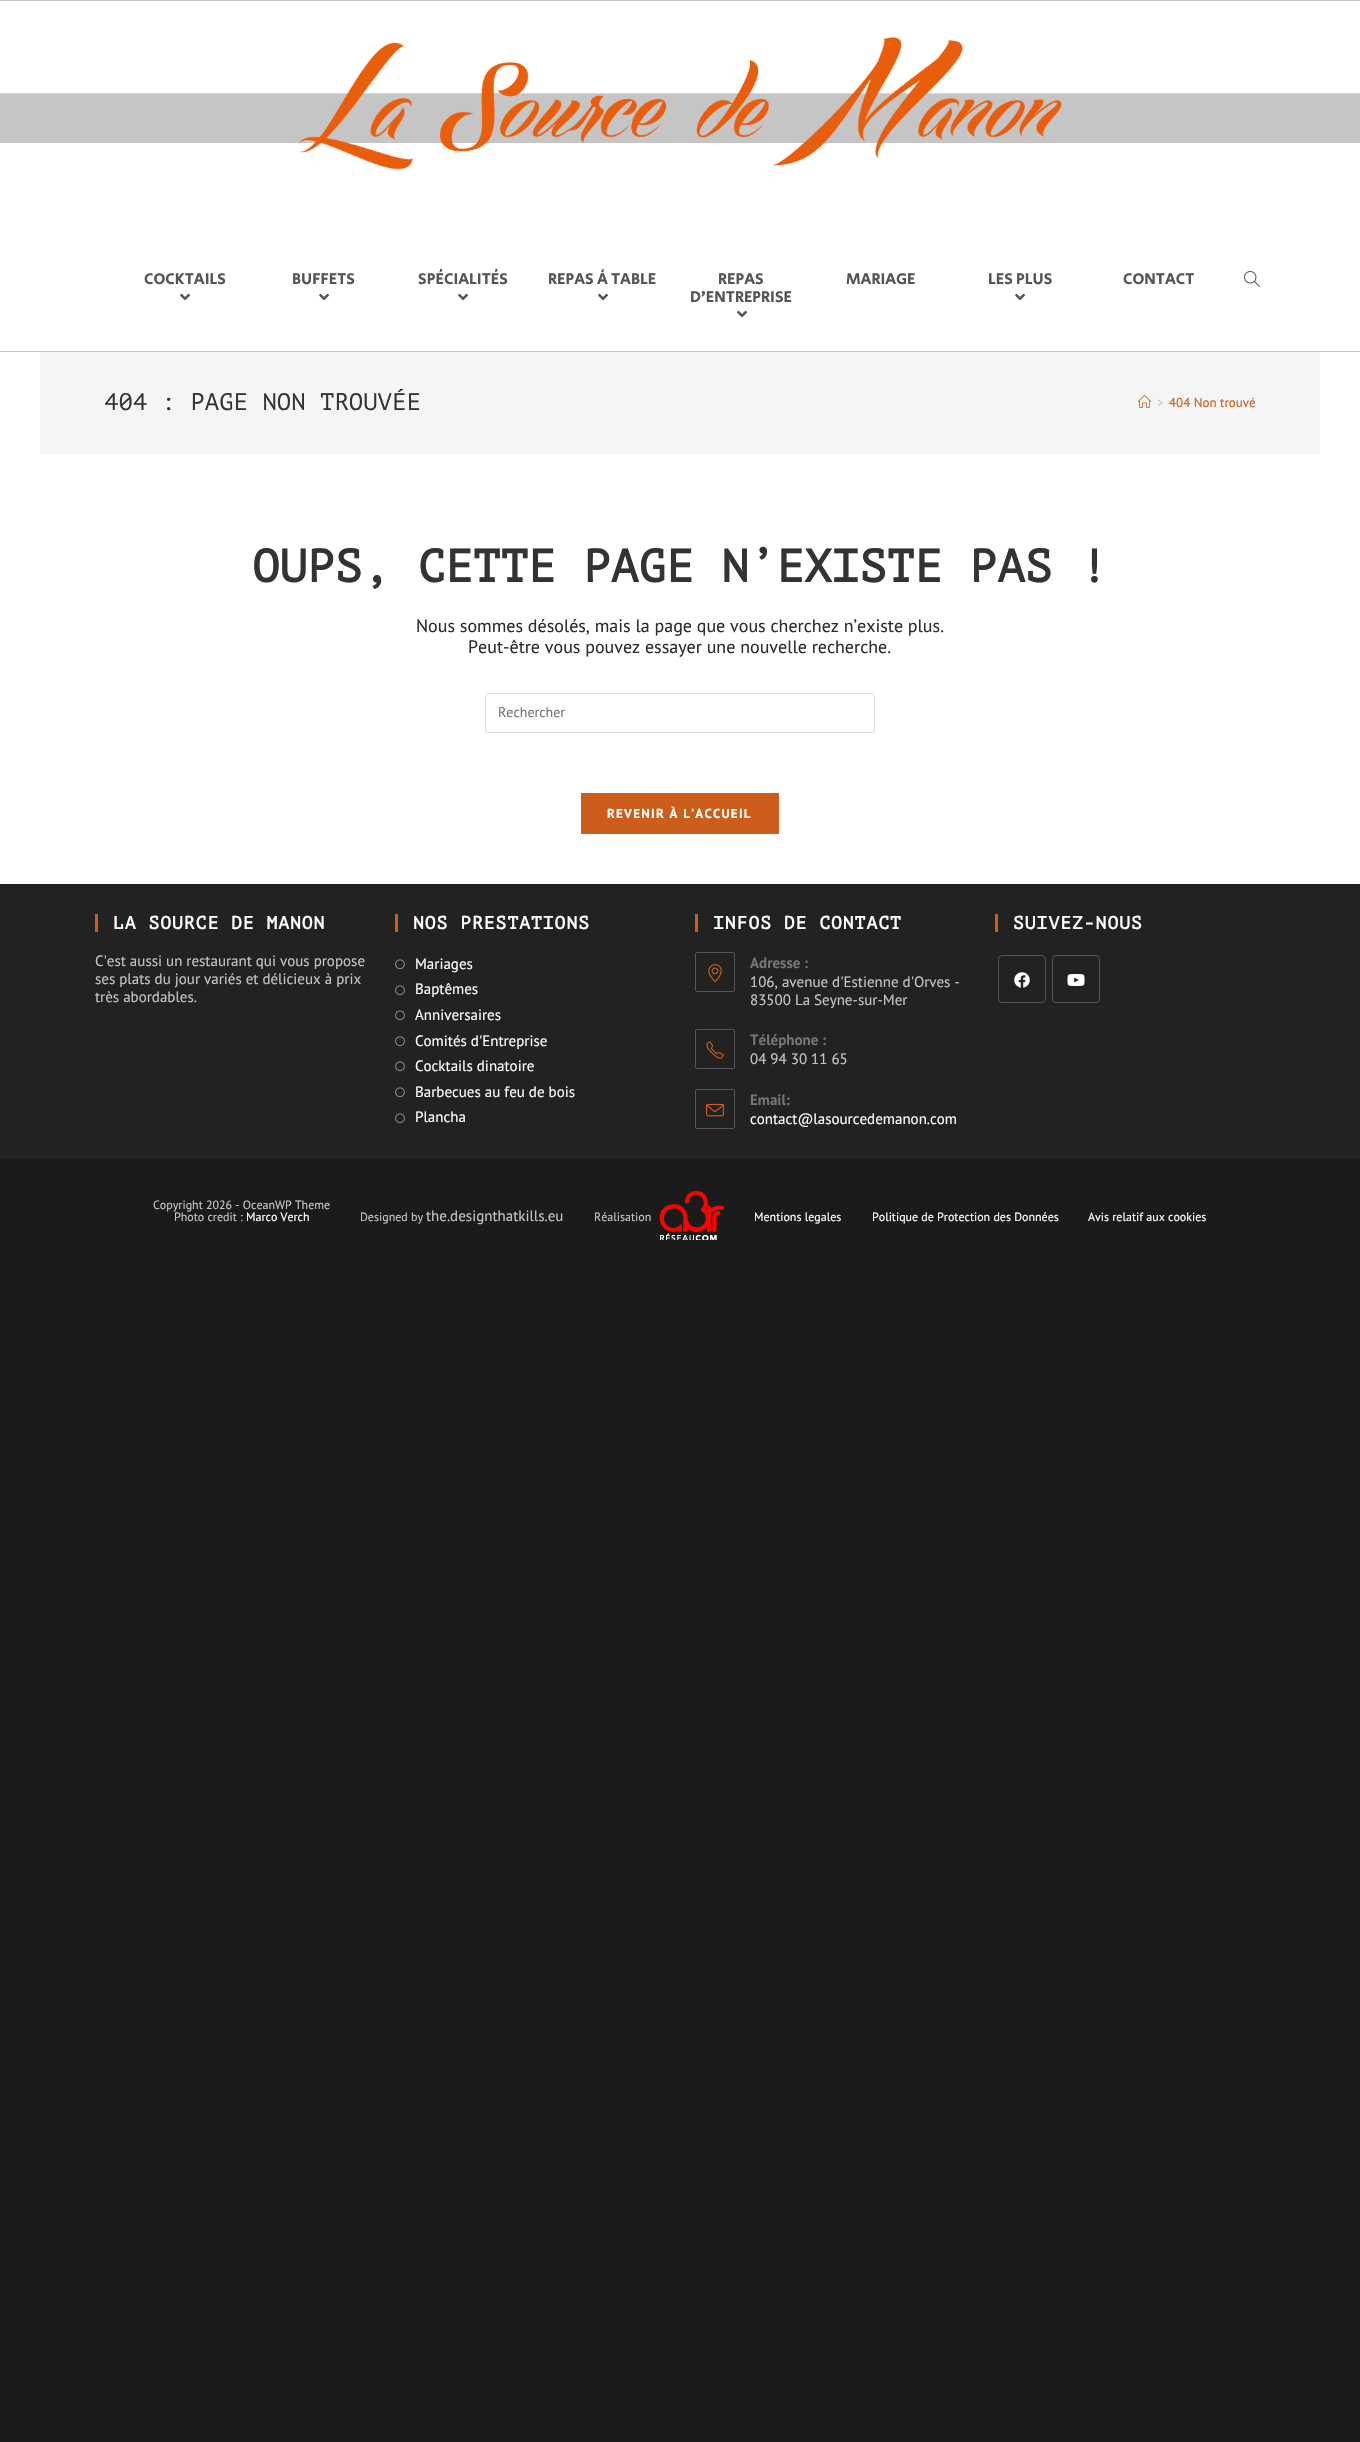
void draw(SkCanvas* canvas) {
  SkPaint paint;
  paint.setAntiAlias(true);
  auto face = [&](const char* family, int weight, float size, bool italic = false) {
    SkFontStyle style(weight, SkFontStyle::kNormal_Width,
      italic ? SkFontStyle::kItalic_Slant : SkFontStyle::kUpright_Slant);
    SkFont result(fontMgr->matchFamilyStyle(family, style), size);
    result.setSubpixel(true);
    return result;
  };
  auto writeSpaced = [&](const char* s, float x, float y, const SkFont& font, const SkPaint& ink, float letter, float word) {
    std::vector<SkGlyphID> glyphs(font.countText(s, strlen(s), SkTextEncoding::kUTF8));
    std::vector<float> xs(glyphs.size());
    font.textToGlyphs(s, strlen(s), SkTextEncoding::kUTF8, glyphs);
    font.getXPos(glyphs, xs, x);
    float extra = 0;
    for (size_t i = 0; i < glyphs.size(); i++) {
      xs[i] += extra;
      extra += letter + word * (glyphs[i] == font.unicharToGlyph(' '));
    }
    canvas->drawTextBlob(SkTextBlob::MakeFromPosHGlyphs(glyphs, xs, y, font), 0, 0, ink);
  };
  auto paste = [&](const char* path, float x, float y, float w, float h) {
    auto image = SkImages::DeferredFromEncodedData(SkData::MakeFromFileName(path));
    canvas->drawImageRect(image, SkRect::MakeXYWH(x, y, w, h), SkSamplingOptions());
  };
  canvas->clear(0xff1b1b1b);
  {
    const struct { float x, y, w, h; SkColor color; } items[] = {
      {0, 1, 1360, 883, 0xffffffff},
      {0, 0, 1360, 1, 0xffc4c4c4},
      {0, 351, 1360, 1, 0xffc4c4c4},
    };
    for (auto [x, y, w, h, color] : items) {
      paint.setColor(color);
      canvas->drawRect(SkRect::MakeXYWH(x, y, w, h), paint);
    }
  }
  paste("img/1.png", 0, 37, 1360, 133);
  paste("img/2.png", 180, 293, 10, 8);
  paste("img/2.png", 319, 293, 10, 8);
  paste("img/2.png", 458, 293, 10, 8);
  paste("img/2.png", 598, 293, 10, 8);
  paste("img/2.png", 737, 310, 10, 8);
  paste("img/2.png", 1015, 293, 10, 8);
  paste("img/3.png", 1244, 271, 16, 16);
  paint.setColor(0xfff5f5f5);
  canvas->drawRect(SkRect::MakeXYWH(40, 352, 1280, 102), paint);
  paste("img/4.png", 1138, 394, 13, 14);
  paint.setStroke(true);
  paint.setStrokeWidth(1);
  paint.setColor(0xffdddddd);
  canvas->drawRoundRect(SkRect::MakeXYWH(485.5f, 693.5f, 389, 39), 2.5f, 2.5f, paint);
  paint.setStroke(false);
  {
    const struct { float x, y, w, h; SkColor color; } items[] = {
      {581, 793, 198, 41, 0xffcd5d1b},
      {0, 884, 1360, 275, 0xff222222},
      {95, 914, 3, 18, 0xffcd5d1b},
      {395, 914, 3, 18, 0xffcd5d1b},
    };
    for (auto [x, y, w, h, color] : items) {
      paint.setColor(color);
      canvas->drawRect(SkRect::MakeXYWH(x, y, w, h), paint);
    }
  }
  paste("img/5.png", 395, 959, 10, 11);
  paste("img/5.png", 395, 985, 10, 11);
  paste("img/5.png", 395, 1010, 10, 11);
  paste("img/5.png", 395, 1036, 10, 11);
  paste("img/5.png", 395, 1061, 10, 11);
  paste("img/5.png", 395, 1087, 10, 11);
  paste("img/5.png", 395, 1113, 10, 11);
  canvas->drawRect(SkRect::MakeXYWH(695, 914, 3, 18), paint);
  paint.setStroke(true);
  paint.setColor(0xff555555);
  canvas->drawRoundRect(SkRect::MakeXYWH(695.5f, 952.5f, 39, 39), 1.5f, 1.5f, paint);
  paste("img/6.png", 708, 964, 14, 19);
  canvas->drawRoundRect(SkRect::MakeXYWH(695.5f, 1029.5f, 39, 39), 1.5f, 1.5f, paint);
  paste("img/7.png", 706, 1041, 18, 18);
  canvas->drawRoundRect(SkRect::MakeXYWH(695.5f, 1089.5f, 39, 39), 1.5f, 1.5f, paint);
  paste("img/8.png", 706, 1103, 18, 14);
  paint.setStroke(false);
  paint.setColor(0xffcd5d1b);
  canvas->drawRect(SkRect::MakeXYWH(995, 914, 3, 18), paint);
  paint.setStroke(true);
  paint.setColor(0xff555555);
  canvas->drawRoundRect(SkRect::MakeXYWH(998.5f, 955.5f, 47, 47), 3.5f, 3.5f, paint);
  paste("img/9.png", 1014, 972, 16, 16);
  canvas->drawRoundRect(SkRect::MakeXYWH(1052.5f, 955.5f, 47, 47), 3.5f, 3.5f, paint);
  paste("img/10.png", 1067, 974, 18, 12);
  paste("img/11.png", 659, 1191, 65, 49);
  auto f0 = face("Secular One", 400, 16);
  paint.setStroke(false);
  {
    const struct { const char* s; float x, y; } items[] = {
      {"COCKTAILS", 144, 284},
      {"BUFFETS", 292, 284},
      {"SPÉCIALITÉS", 418, 284},
      {"REPAS À TABLE", 548, 284},
      {"REPAS", 718, 284},
      {"D’ENTREPRISE", 690, 302},
      {"MARIAGE", 846, 284},
      {"LES PLUS", 988, 284},
      {"CONTACT", 1123, 284},
    };
    for (auto [s, x, y] : items) {
      canvas->drawString(s, x, y, f0, paint);
    }
  }
  auto f1 = face("PT Mono", 400, 24);
  paint.setColor(0xff333333);
  canvas->drawString("404 : PAGE NON TROUVÉE", 104, 410, f1, paint);
  auto f2 = face("PT Sans", 400, 13);
  paint.setColor(0xffc6c6c6);
  canvas->drawString(">", 1157, 407, f2, paint);
  paint.setColor(0xffcd5d1b);
  canvas->drawString("404 Non trouvé", 1169, 407, f2, paint);
  auto f3 = face("PT Mono", 700, 46);
  paint.setColor(0xff333333);
  canvas->drawString("OUPS, CETTE PAGE N’EXISTE PAS !", 252, 582, f3, paint);
  auto f4 = face("PT Sans", 400, 18);
  paint.setColor(0xff2b2b2b);
  canvas->drawString("Nous sommes désolés, mais la page que vous cherchez n’existe plus.", 416, 632, f4, paint);
  canvas->drawString("Peut-être vous pouvez essayer une nouvelle recherche.", 468, 653, f4, paint);
  auto f5 = face("PT Sans", 400, 14);
  paint.setColor(0xff757575);
  canvas->drawString("Rechercher", 498, 717, f5, paint);
  auto f6 = face("PT Sans", 700, 13);
  paint.setColor(0xffffffff);
  writeSpaced("REVENIR À L’ACCUEIL", 607, 818, f6, paint, 1.25f, 0);
  auto f7 = face("PT Mono", 700, 18);
  writeSpaced("LA SOURCE DE MANON", 113, 929, f7, paint, 1, 0);
  auto f8 = face("PT Sans", 400, 15);
  paint.setColor(0xffc6c6c6);
  {
    const struct { const char* s; float x, y; } items[] = {
      {"C'est aussi un restaurant qui vous propose", 95, 966},
      {"ses plats du jour variés et délicieux à prix", 95, 984},
      {"très abordables.", 95, 1002},
    };
    for (auto [s, x, y] : items) {
      canvas->drawString(s, x, y, f8, paint);
    }
  }
  paint.setColor(0xffffffff);
  writeSpaced("NOS PRESTATIONS", 413, 929, f7, paint, 1, 0);
  {
    const struct { const char* s; float x, y; } items[] = {
      {"Mariages", 415, 969},
      {"Baptêmes", 415, 994},
      {"Anniversaires", 415, 1020},
      {"Comités d'Entreprise", 415, 1046},
      {"Cocktails dinatoire", 415, 1071},
      {"Barbecues au feu de bois", 415, 1097},
      {"Plancha", 415, 1122},
    };
    for (auto [s, x, y] : items) {
      canvas->drawString(s, x, y, f8, paint);
    }
  }
  writeSpaced("INFOS DE CONTACT", 713, 929, f7, paint, 1, 0);
  auto f9 = face("PT Sans", 700, 15);
  paint.setColor(0xff757575);
  canvas->drawString("Adresse :", 750, 968, f9, paint);
  paint.setColor(0xffc6c6c6);
  canvas->drawString("106, avenue d'Estienne d'Orves -", 750, 987, f8, paint);
  canvas->drawString("83500 La Seyne-sur-Mer", 750, 1005, f8, paint);
  paint.setColor(0xff757575);
  canvas->drawString("Téléphone :", 750, 1045, f9, paint);
  paint.setColor(0xffc6c6c6);
  canvas->drawString("04 94 30 11 65", 750, 1064, f8, paint);
  paint.setColor(0xff757575);
  canvas->drawString("Email:", 750, 1105, f9, paint);
  paint.setColor(0xffffffff);
  canvas->drawString("contact@lasourcedemanon.com", 750, 1124, f8, paint);
  writeSpaced("SUIVEZ-NOUS", 1013, 929, f7, paint, 1, 0);
  auto f10 = face("PT Sans", 400, 12);
  paint.setColor(0xffc6c6c6);
  canvas->drawString("Copyright 2026 - OceanWP Theme", 153, 1209, f10, paint);
  canvas->drawString("Photo credit :", 174, 1221, f10, paint);
  paint.setColor(0xffffffff);
  canvas->drawString("Marco Verch", 246, 1221, f10, paint);
  paint.setColor(0xffc6c6c6);
  canvas->drawString("Designed by", 360, 1221, f10, paint);
  canvas->drawString("the.designthatkills.eu", 426, 1221, f8, paint);
  canvas->drawString("Réalisation", 594, 1221, f10, paint);
  paint.setColor(0xffffffff);
  {
    const struct { const char* s; float x, y; } items[] = {
      {"Mentions legales", 754, 1221},
      {"Politique de Protection des Données", 872, 1221},
      {"Avis relatif aux cookies", 1088, 1221},
    };
    for (auto [s, x, y] : items) {
      canvas->drawString(s, x, y, f10, paint);
    }
  }
}
